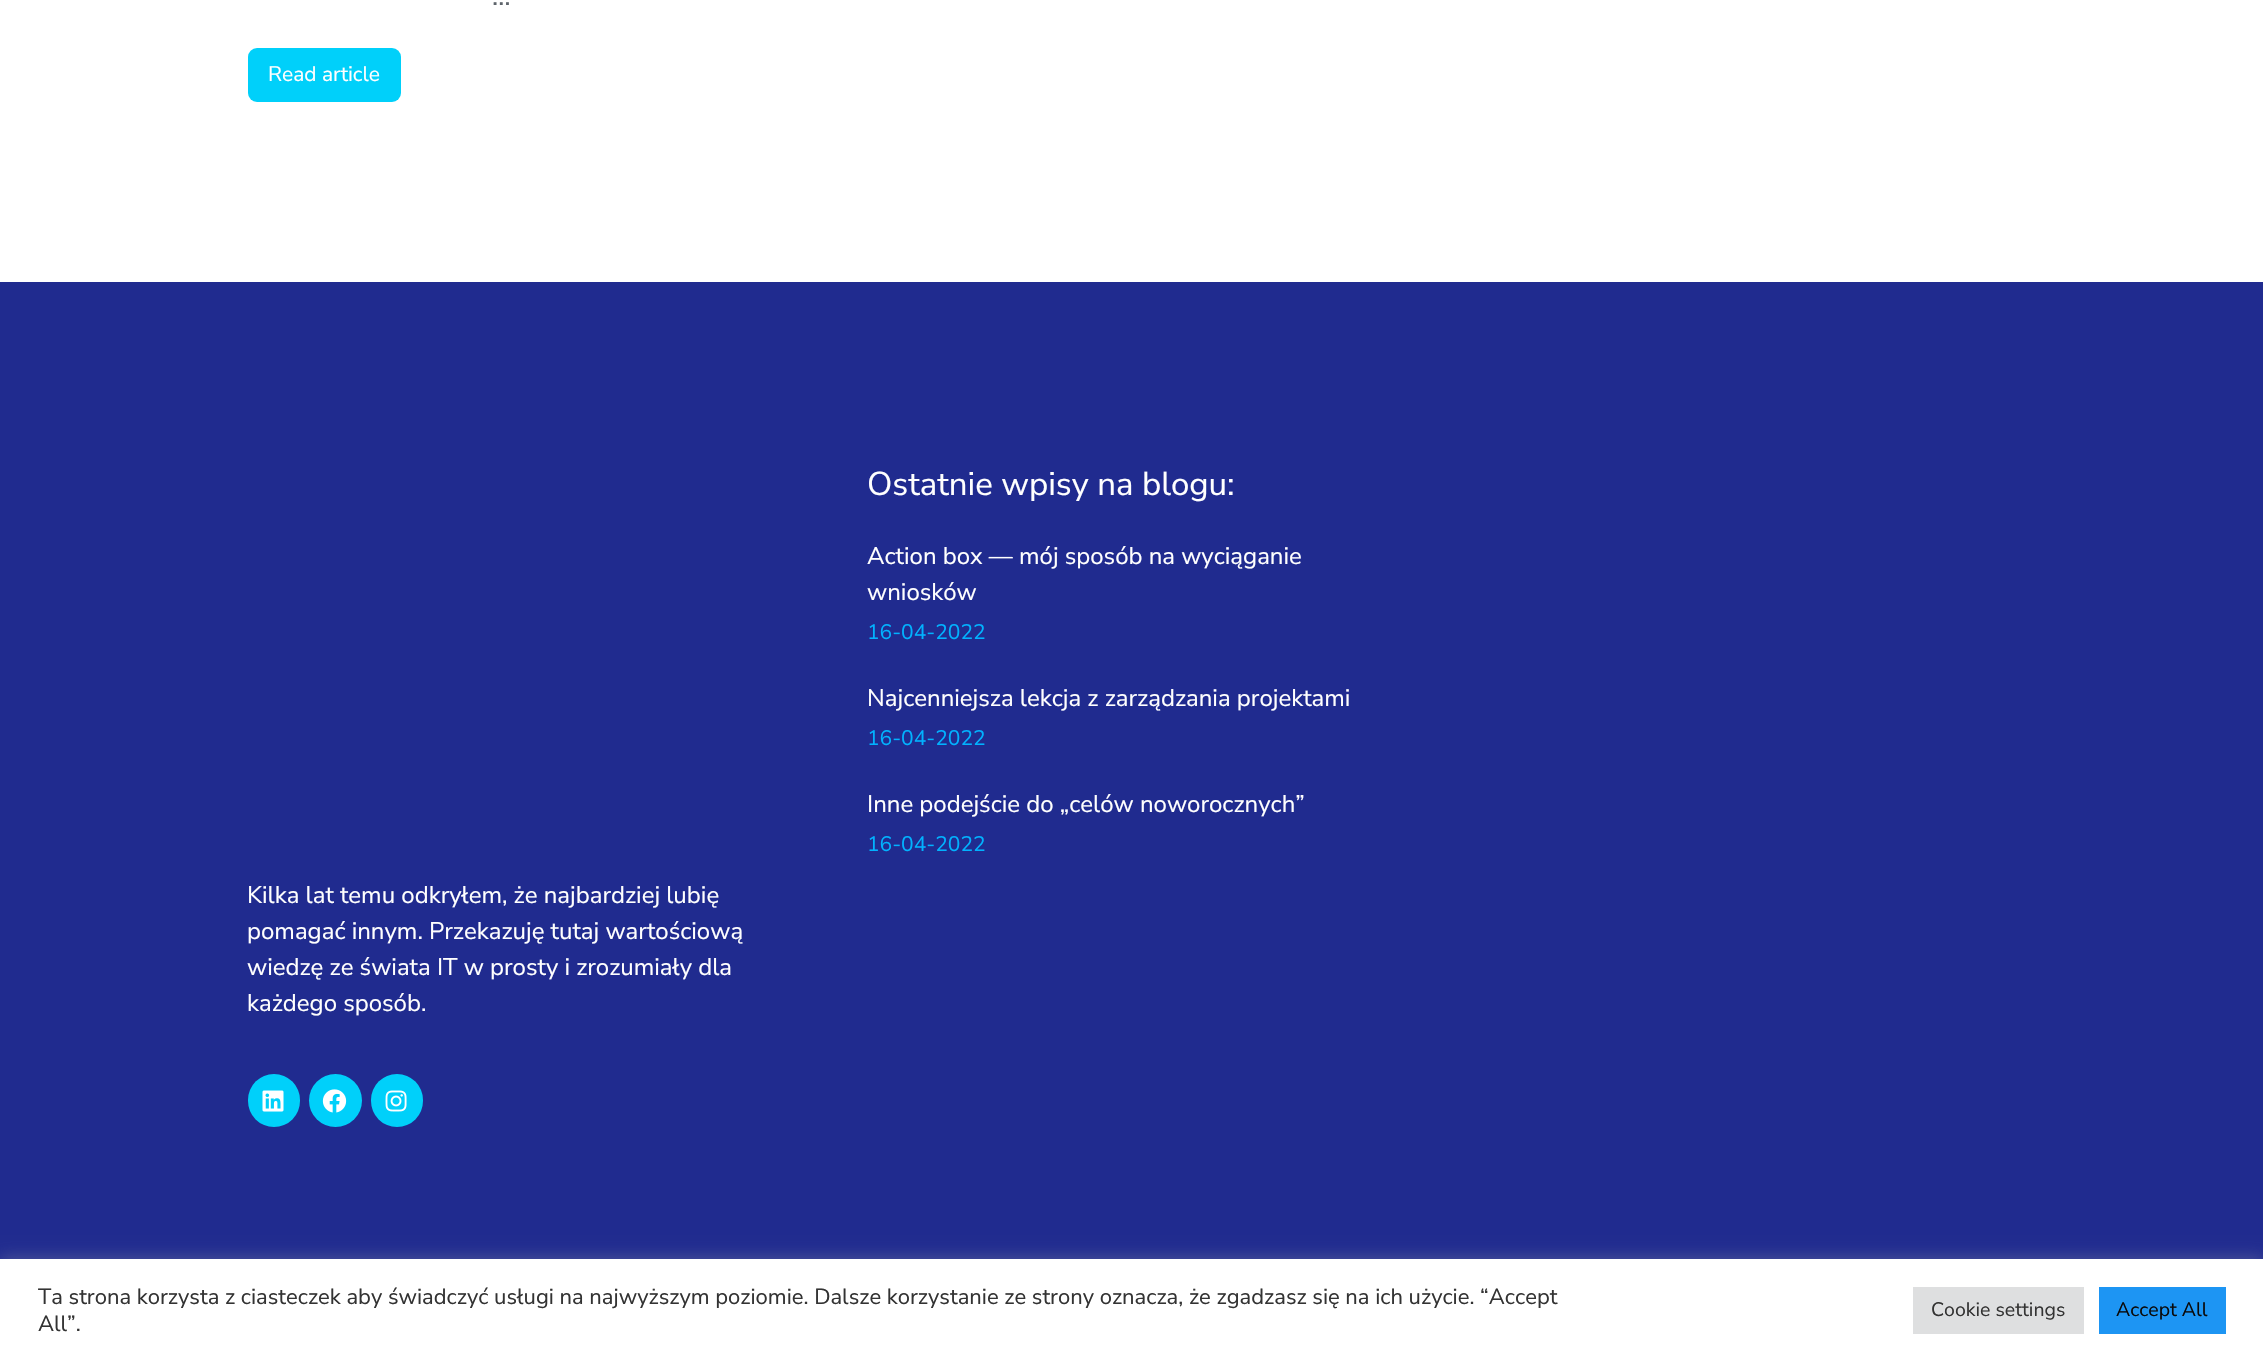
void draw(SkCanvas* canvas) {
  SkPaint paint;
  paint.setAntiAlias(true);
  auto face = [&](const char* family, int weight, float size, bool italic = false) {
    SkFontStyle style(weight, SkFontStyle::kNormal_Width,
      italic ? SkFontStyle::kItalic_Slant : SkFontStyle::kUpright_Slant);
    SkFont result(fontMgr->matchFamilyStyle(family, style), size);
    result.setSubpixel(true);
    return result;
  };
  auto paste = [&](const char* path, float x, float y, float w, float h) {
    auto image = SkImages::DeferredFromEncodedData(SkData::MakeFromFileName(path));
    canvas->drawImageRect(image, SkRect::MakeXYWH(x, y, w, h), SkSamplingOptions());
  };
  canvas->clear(0xffffffff);
  paint.setColor(0xff00d0fa);
  canvas->drawRoundRect(SkRect::MakeXYWH(248, 48, 153, 54), 9, 9, paint);
  paint.setColor(0xff202b8f);
  canvas->drawRect(SkRect::MakeXYWH(0, 282, 2263, 977), paint);
  paint.setColor(0xff00d0fa);
  canvas->drawRoundRect(SkRect::MakeXYWH(248, 1074, 52, 53), 26, 26, paint);
  paste("img/1.png", 262, 1090, 22, 22);
  canvas->drawCircle(335.5f, 1100.5f, 26.5f, paint);
  paste("img/2.png", 322, 1089, 25, 24);
  canvas->drawRoundRect(SkRect::MakeXYWH(371, 1074, 52, 53), 26, 26, paint);
  paste("img/3.png", 385, 1090, 22, 22);
  paint.setColor(0x4dacabab);
  paint.setMaskFilter(SkMaskFilter::MakeBlur(kNormal_SkBlurStyle, 7.5f));
  canvas->drawRect(SkRect::MakeXYWH(0, 1257, 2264, 104), paint);
  paint.setMaskFilter(nullptr);
  {
    const struct { float x, y, w, h; SkColor color; } items[] = {
      {0, 1259, 2263, 103, 0xffffffff},
      {1913, 1287, 171, 47, 0xffdedfe0},
      {2099, 1287, 127, 47, 0xff1d95f3},
    };
    for (auto [x, y, w, h, color] : items) {
      paint.setColor(color);
      canvas->drawRect(SkRect::MakeXYWH(x, y, w, h), paint);
    }
  }
  auto f0 = face("Nunito Sans", 400, 27);
  paint.setColor(0xff5e646b);
  canvas->drawString("…", 492, 5, f0, paint);
  auto f1 = face("Nunito Sans", 400, 21);
  paint.setColor(0xffffffff);
  canvas->drawString("Read article", 268, 81, f1, paint);
  auto f2 = face("Nunito Sans", 400, 33);
  canvas->drawString("Ostatnie wpisy na blogu:", 867, 495, f2, paint);
  auto f3 = face("Nunito Sans", 400, 24);
  canvas->drawString("Action box — mój sposób na wyciąganie", 867, 564, f3, paint);
  canvas->drawString("wniosków", 867, 600, f3, paint);
  paint.setColor(0xff01b2ff);
  canvas->drawString("16-04-2022", 867, 639, f1, paint);
  paint.setColor(0xffffffff);
  canvas->drawString("Najcenniejsza lekcja z zarządzania projektami", 867, 706, f3, paint);
  paint.setColor(0xff01b2ff);
  canvas->drawString("16-04-2022", 867, 745, f1, paint);
  paint.setColor(0xffffffff);
  canvas->drawString("Inne podejście do „celów noworocznych”", 867, 812, f3, paint);
  paint.setColor(0xff01b2ff);
  canvas->drawString("16-04-2022", 867, 851, f1, paint);
  paint.setColor(0xffffffff);
  {
    const struct { const char* s; float x, y; } items[] = {
      {"Kilka lat temu odkryłem, że najbardziej lubię", 247, 903},
      {"pomagać innym. Przekazuję tutaj wartościową", 247, 939},
      {"wiedzę ze świata IT w prosty i zrozumiały dla", 247, 975},
      {"każdego sposób.", 247, 1011},
    };
    for (auto [s, x, y] : items) {
      canvas->drawString(s, x, y, f3, paint);
    }
  }
  auto f4 = face("Nunito Sans", 400, 22);
  paint.setColor(0xff333333);
  canvas->drawString("Ta strona korzysta z ciasteczek aby świadczyć usługi na najwyższym poziomie. Dalsze korzystanie ze strony oznacza, że zgadzasz się na ich użycie. “Accept", 38, 1304, f4, paint);
  canvas->drawString("All”.", 38, 1331, f4, paint);
  auto f5 = face("Nunito Sans", 400, 19.5f);
  canvas->drawString("Cookie settings", 1931, 1316, f5, paint);
  paint.setColor(0xff0a0a0a);
  canvas->drawString("Accept All", 2116, 1316, f5, paint);
}
